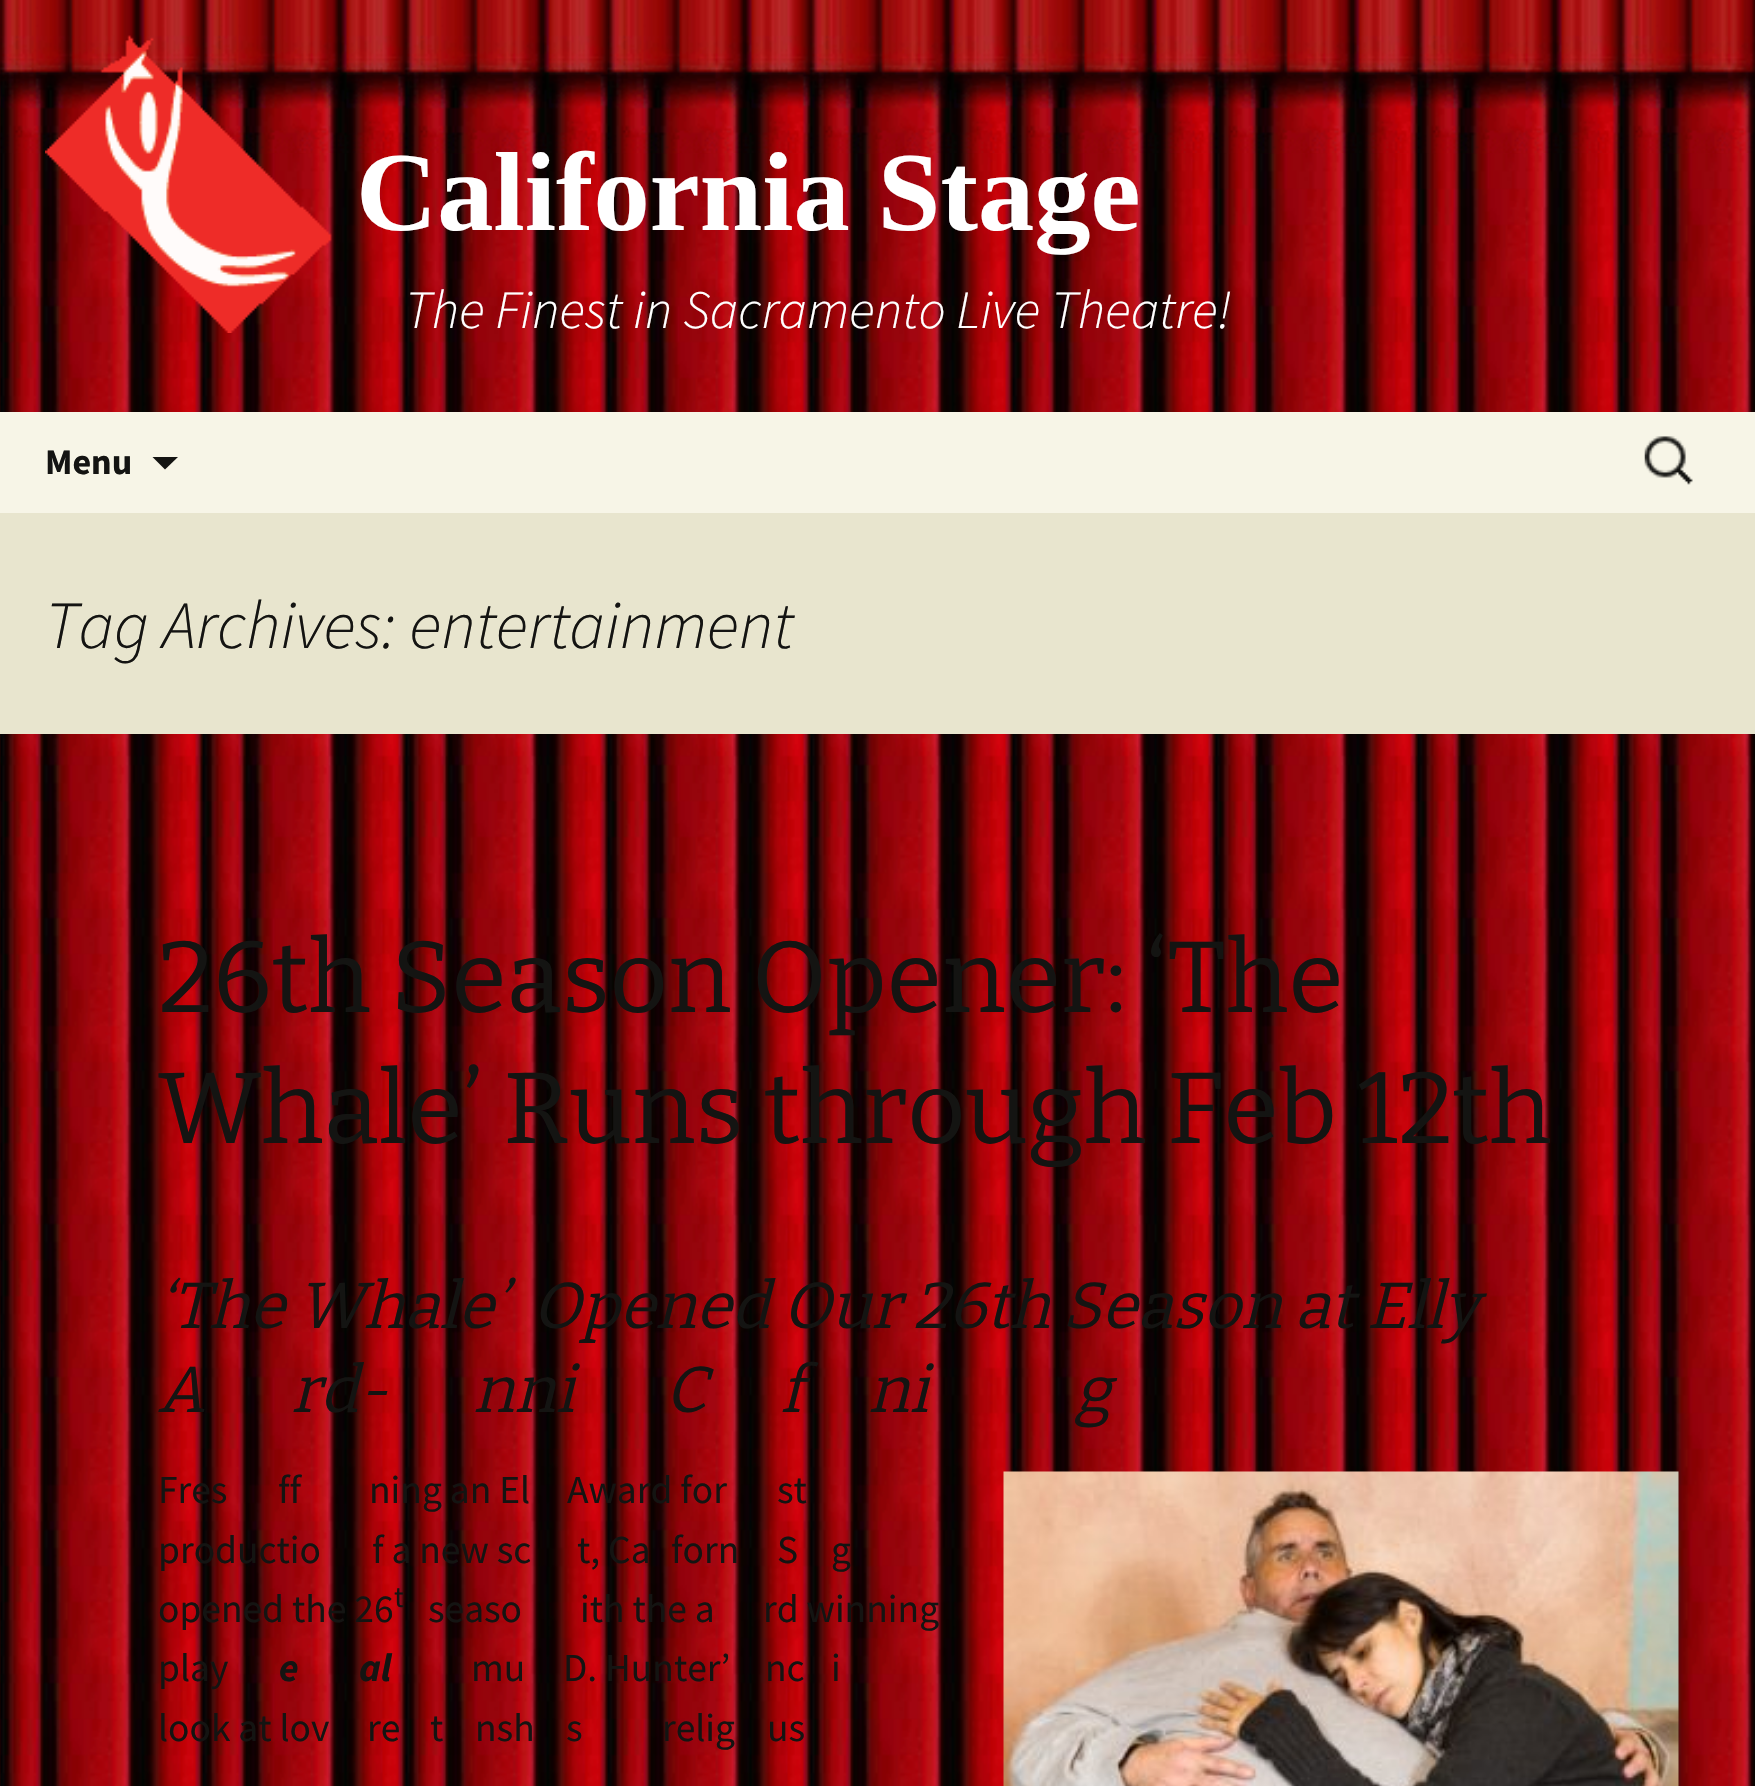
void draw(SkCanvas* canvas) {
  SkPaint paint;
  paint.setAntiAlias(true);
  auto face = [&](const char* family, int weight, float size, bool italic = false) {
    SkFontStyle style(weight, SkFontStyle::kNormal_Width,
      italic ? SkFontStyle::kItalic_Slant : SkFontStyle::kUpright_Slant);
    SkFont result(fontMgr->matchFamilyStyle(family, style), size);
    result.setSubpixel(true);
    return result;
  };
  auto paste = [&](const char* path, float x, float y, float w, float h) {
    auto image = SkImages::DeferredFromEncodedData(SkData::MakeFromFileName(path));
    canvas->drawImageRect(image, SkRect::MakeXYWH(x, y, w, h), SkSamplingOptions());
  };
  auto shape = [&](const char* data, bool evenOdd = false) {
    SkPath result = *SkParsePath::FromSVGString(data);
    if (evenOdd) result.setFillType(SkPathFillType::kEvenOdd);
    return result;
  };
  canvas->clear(0xffffffff);
  paste("img/1.png", 0, 153, 1755, 1633);
  paste("img/2.png", 0, 0, 1755, 153);
  paste("img/3.png", 45, 35, 287, 298);
  paint.setColor(0xfff7f5e7);
  canvas->drawRect(SkRect::MakeXYWH(0, 412, 1755, 101), paint);
  paint.setColor(0xff141412);
  canvas->drawPath(shape("M152.5 457L165 469.5L178 457Z"), paint);
  paste("img/4.png", 1644, 436, 49, 49);
  paint.setColor(0xffe8e5ce);
  canvas->drawRect(SkRect::MakeXYWH(0, 513, 1755, 221), paint);
  paste("img/5.png", 1003, 1471, 676, 315);
  auto f0 = face("Liberation Serif", 700, 112.5f);
  paint.setColor(0xffffffff);
  canvas->drawString("California Stage", 356, 230, f0, paint);
  auto f1 = face("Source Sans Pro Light", 300, 54, true);
  canvas->drawString("The Finest in Sacramento Live Theatre!", 405, 328, f1, paint);
  auto f2 = face("Source Sans Pro", 700, 36);
  paint.setColor(0xff141412);
  canvas->drawString("Menu", 45, 474, f2, paint);
  auto f3 = face("Source Sans Pro Light", 300, 67.5f, true);
  canvas->drawString("Tag Archives: entertainment", 45, 648, f3, paint);
  auto f4 = face("Bitter", 100, 100.75f);
  canvas->drawString("26th Season Opener: ‘The", 158, 1012, f4, paint);
  canvas->drawString("Whale’ Runs through Feb 12th", 158, 1143, f4, paint);
  auto f5 = face("Bitter", 100, 64.8f, true);
  {
    const struct { const char* s; float x, y; } items[] = {
      {"‘The Whale’  Opened Our 26th Season at Elly", 158, 1328},
      {"A", 158, 1412},
      {"rd-", 291, 1412},
      {"nni", 473, 1412},
      {"C", 665, 1412},
      {"f", 780, 1412},
      {"ni", 868, 1412},
      {"g", 1075, 1412},
    };
    for (auto [s, x, y] : items) {
      canvas->drawString(s, x, y, f5, paint);
    }
  }
  auto f6 = face("Source Sans Pro", 400, 39.5f);
  {
    const struct { const char* s; float x, y; } items[] = {
      {"Fres", 158, 1503},
      {"ff", 278, 1503},
      {"ning an El", 369, 1503},
      {"Award for", 567, 1503},
      {"st", 777, 1503},
      {"productio", 158, 1563},
      {"f a new sc", 372, 1563},
      {"t, Ca", 577, 1563},
      {"forn", 671, 1563},
      {"S", 777, 1563},
      {"g", 831, 1563},
      {"opened the 26", 158, 1622},
    };
    for (auto [s, x, y] : items) {
      canvas->drawString(s, x, y, f6, paint);
    }
  }
  auto f7 = face("Source Sans Pro", 400, 30);
  canvas->drawString("t", 394, 1607, f7, paint);
  {
    const struct { const char* s; float x, y; } items[] = {
      {"seaso", 428, 1622},
      {"ith the a", 580, 1622},
      {"rd winning", 763, 1622},
      {"play", 158, 1681},
    };
    for (auto [s, x, y] : items) {
      canvas->drawString(s, x, y, f6, paint);
    }
  }
  auto f8 = face("Source Sans Pro", 700, 39.5f, true);
  canvas->drawString("e", 279, 1681, f8, paint);
  canvas->drawString("al", 359, 1681, f8, paint);
  {
    const struct { const char* s; float x, y; } items[] = {
      {"mu", 471, 1681},
      {"D. Hunter’", 563, 1681},
      {"nc", 765, 1681},
      {"i", 831, 1681},
      {"look at lov", 158, 1741},
      {"re", 367, 1741},
      {"t", 430, 1741},
      {"nsh", 475, 1741},
      {"s", 566, 1741},
      {"relig", 662, 1741},
      {"us", 767, 1741},
    };
    for (auto [s, x, y] : items) {
      canvas->drawString(s, x, y, f6, paint);
    }
  }
}
